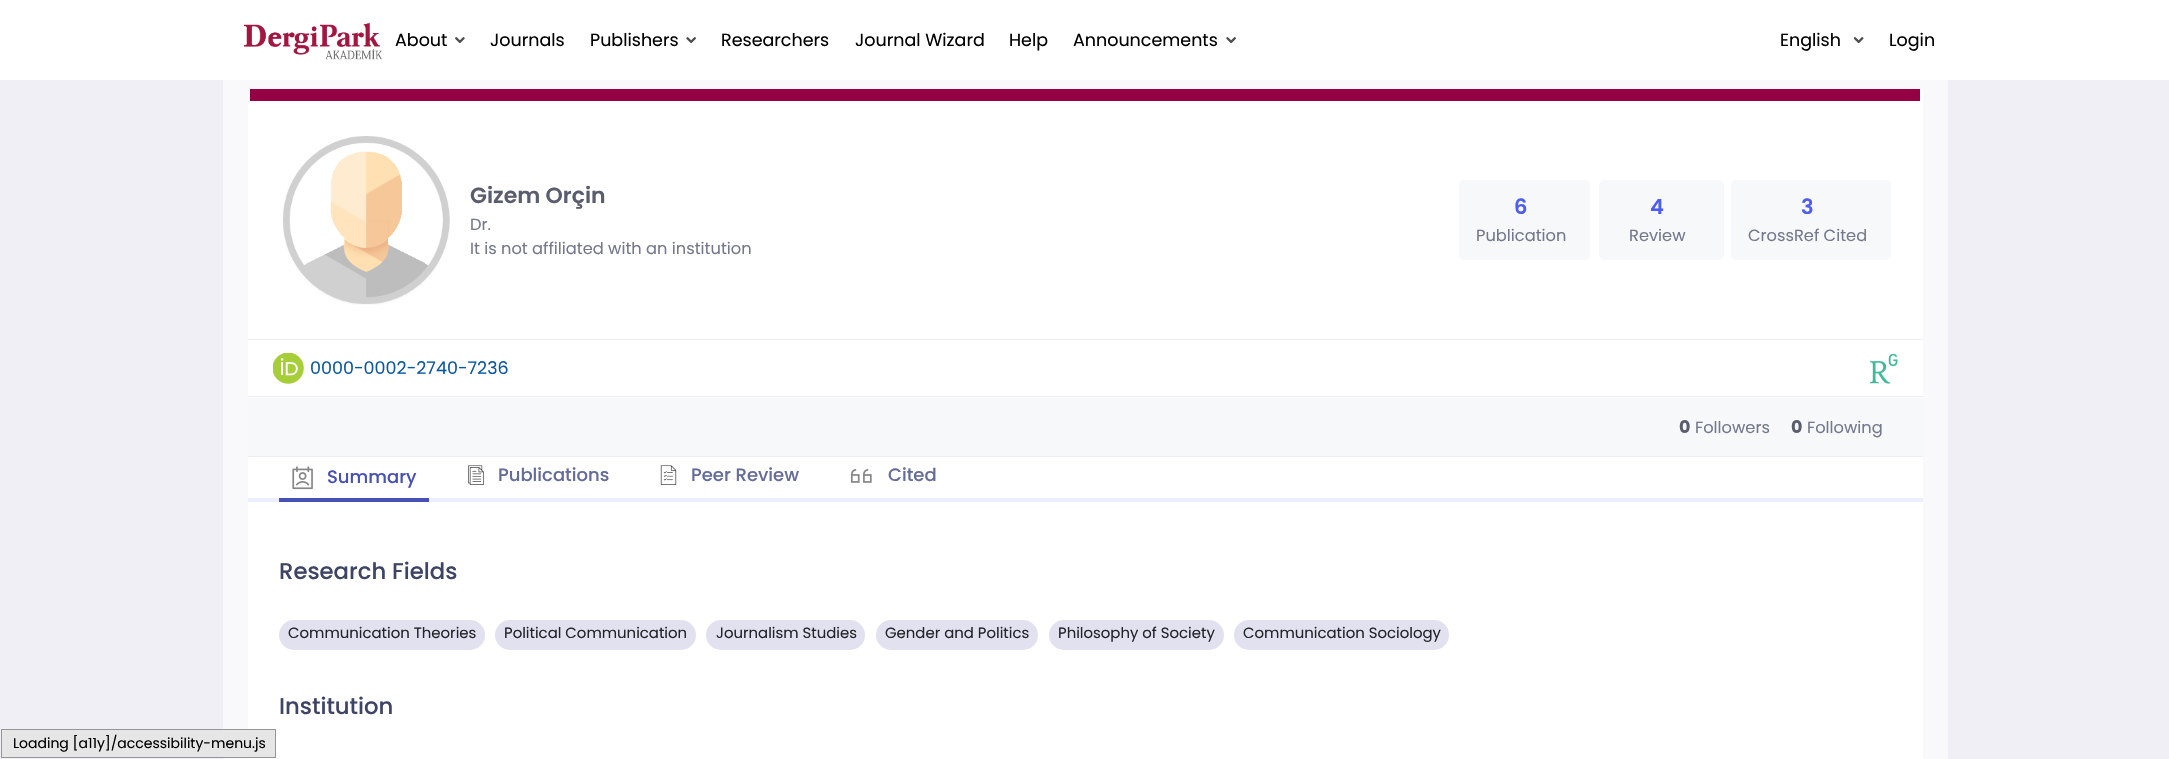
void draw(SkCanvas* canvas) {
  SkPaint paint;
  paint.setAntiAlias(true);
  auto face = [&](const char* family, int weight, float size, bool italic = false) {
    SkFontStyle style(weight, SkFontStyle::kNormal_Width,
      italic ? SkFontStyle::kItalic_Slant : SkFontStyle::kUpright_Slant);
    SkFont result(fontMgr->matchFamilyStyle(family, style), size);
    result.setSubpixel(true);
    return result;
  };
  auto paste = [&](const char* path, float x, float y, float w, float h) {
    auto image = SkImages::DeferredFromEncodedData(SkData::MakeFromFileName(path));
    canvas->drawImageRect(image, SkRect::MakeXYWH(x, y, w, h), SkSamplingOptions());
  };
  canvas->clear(0xffefeff5);
  paint.setColor(0xffffffff);
  canvas->drawRect(SkRect::MakeXYWH(0, 0, 2169, 80), paint);
  paste("img/1.png", 243, 22, 139, 38);
  paste("img/2.png", 455, 37, 10, 7);
  paste("img/3.png", 686, 37, 10, 7);
  paste("img/3.png", 1226, 37, 10, 7);
  paste("img/4.png", 1853, 37, 11, 7);
  paint.setColor(0xfff9f9fc);
  canvas->drawRect(SkRect::MakeXYWH(223, 80, 1725, 679), paint);
  paint.setColor(0xffffffff);
  canvas->drawRoundRect(SkRect::MakeXYWH(248, 89, 1675, 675), 5, 5, paint);
  paint.setColor(0xff940043);
  canvas->drawRect(SkRect::MakeXYWH(250, 89, 1670, 12), paint);
  paste("img/5.png", 283, 136, 167, 169);
  paint.setColor(0xfff7f8fa);
  canvas->drawRoundRect(SkRect::MakeXYWH(1459, 180, 131, 80), 5, 5, paint);
  canvas->drawRoundRect(SkRect::MakeXYWH(1599, 180, 125, 80), 5, 5, paint);
  canvas->drawRoundRect(SkRect::MakeXYWH(1731, 180, 160, 80), 5, 5, paint);
  paint.setColor(0xffebedf2);
  canvas->drawRect(SkRect::MakeXYWH(248, 339, 1675, 1), paint);
  paste("img/6.png", 273, 353, 31, 31);
  paste("img/7.png", 1870, 354, 28, 30);
  {
    const struct { float x, y, w, h; SkColor color; } items[] = {
      {248, 396, 1675, 1, 0xffebedf2},
      {248, 398, 1675, 58, 0xfff7f8fa},
      {248, 456, 1675, 1, 0xffebedf2},
      {248, 498, 1675, 4, 0x1a4d5cf2},
      {279, 498, 150, 4, 0xff4751b5},
    };
    for (auto [x, y, w, h, color] : items) {
      paint.setColor(color);
      canvas->drawRect(SkRect::MakeXYWH(x, y, w, h), paint);
    }
  }
  paste("img/8.png", 292, 466, 21, 24);
  paste("img/9.png", 468, 465, 16, 20);
  paste("img/10.png", 660, 465, 17, 20);
  paste("img/11.png", 850, 469, 22, 14);
  paint.setColor(0xffe1e1ef);
  canvas->drawRoundRect(SkRect::MakeXYWH(279, 620, 206, 30), 15, 15, paint);
  canvas->drawRoundRect(SkRect::MakeXYWH(495, 620, 201, 30), 15, 15, paint);
  canvas->drawRoundRect(SkRect::MakeXYWH(706, 620, 159, 30), 15, 15, paint);
  canvas->drawRoundRect(SkRect::MakeXYWH(876, 620, 162, 30), 15, 15, paint);
  canvas->drawRoundRect(SkRect::MakeXYWH(1049, 620, 175, 30), 15, 15, paint);
  canvas->drawRoundRect(SkRect::MakeXYWH(1234, 620, 215, 30), 15, 15, paint);
  paint.setColor(0xffe6e6e6);
  canvas->drawRect(SkRect::MakeXYWH(1.5f, 729.5f, 274, 28), paint);
  paint.setStroke(true);
  paint.setStrokeWidth(1);
  paint.setColor(0xff959595);
  canvas->drawRect(SkRect::MakeXYWH(1.5f, 729.5f, 274, 28), paint);
  auto f0 = face("Poppins", 400, 17.5f);
  paint.setStroke(false);
  paint.setColor(0xff000000);
  {
    const struct { const char* s; float x, y; } items[] = {
      {"About", 395, 46},
      {"Journals", 490, 46},
      {"Publishers", 590, 46},
      {"Researchers", 721, 46},
      {"Journal Wizard", 855, 46},
      {"Help", 1009, 46},
      {"Announcements", 1073, 46},
      {"English", 1780, 46},
      {"Login", 1889, 46},
    };
    for (auto [s, x, y] : items) {
      canvas->drawString(s, x, y, f0, paint);
    }
  }
  auto f1 = face("Poppins", 600, 22);
  paint.setColor(0xff595d6e);
  canvas->drawString("Gizem Orçin", 470, 203, f1, paint);
  auto f2 = face("Poppins", 400, 16.25f);
  paint.setColor(0xff74788d);
  canvas->drawString("Dr.", 470, 230, f2, paint);
  canvas->drawString("It is not affiliated with an institution", 470, 254, f2, paint);
  auto f3 = face("Poppins", 600, 21);
  paint.setColor(0xff4d5cf2);
  canvas->drawString("6", 1514, 214, f3, paint);
  paint.setColor(0xff74788d);
  canvas->drawString("Publication", 1476, 241, f2, paint);
  paint.setColor(0xff4d5cf2);
  canvas->drawString("4", 1650, 214, f3, paint);
  paint.setColor(0xff74788d);
  canvas->drawString("Review", 1629, 241, f2, paint);
  paint.setColor(0xff4d5cf2);
  canvas->drawString("3", 1801, 214, f3, paint);
  paint.setColor(0xff74788d);
  canvas->drawString("CrossRef Cited", 1748, 241, f2, paint);
  paint.setColor(0xff0b58a2);
  canvas->drawString("0000-0002-2740-7236", 310, 374, f0, paint);
  auto f4 = face("Poppins", 700, 17.5f);
  paint.setColor(0xff595d6e);
  canvas->drawString("0", 1679, 433, f4, paint);
  paint.setColor(0xff74788d);
  canvas->drawString("Followers", 1695, 433, f2, paint);
  paint.setColor(0xff595d6e);
  canvas->drawString("0", 1791, 433, f4, paint);
  paint.setColor(0xff74788d);
  canvas->drawString("Following", 1807, 433, f2, paint);
  auto f5 = face("Poppins", 500, 18);
  paint.setColor(0xff4751b5);
  canvas->drawString("Summary", 327, 483, f5, paint);
  paint.setColor(0xff646c9a);
  {
    const struct { const char* s; float x, y; } items[] = {
      {"Publications", 498, 481},
      {"Peer Review", 691, 481},
      {"Cited", 888, 481},
    };
    for (auto [s, x, y] : items) {
      canvas->drawString(s, x, y, f5, paint);
    }
  }
  auto f6 = face("Poppins", 500, 22.75f);
  paint.setColor(0xff3d4465);
  canvas->drawString("Research Fields", 279, 579, f6, paint);
  auto f7 = face("Poppins", 400, 14.9f);
  paint.setColor(0xff212529);
  {
    const struct { const char* s; float x, y; } items[] = {
      {"Communication Theories", 288, 638},
      {"Political Communication", 504, 638},
      {"Journalism Studies", 716, 638},
      {"Gender and Politics", 885, 638},
      {"Philosophy of Society", 1058, 638},
      {"Communication Sociology", 1243, 638},
    };
    for (auto [s, x, y] : items) {
      canvas->drawString(s, x, y, f7, paint);
    }
  }
  paint.setColor(0xff3d4465);
  canvas->drawString("Institution", 279, 714, f6, paint);
  auto f8 = face("Poppins", 400, 14);
  paint.setColor(0xff000000);
  canvas->drawString("Loading [a11y]/accessibility-menu.js", 13, 748, f8, paint);
}
